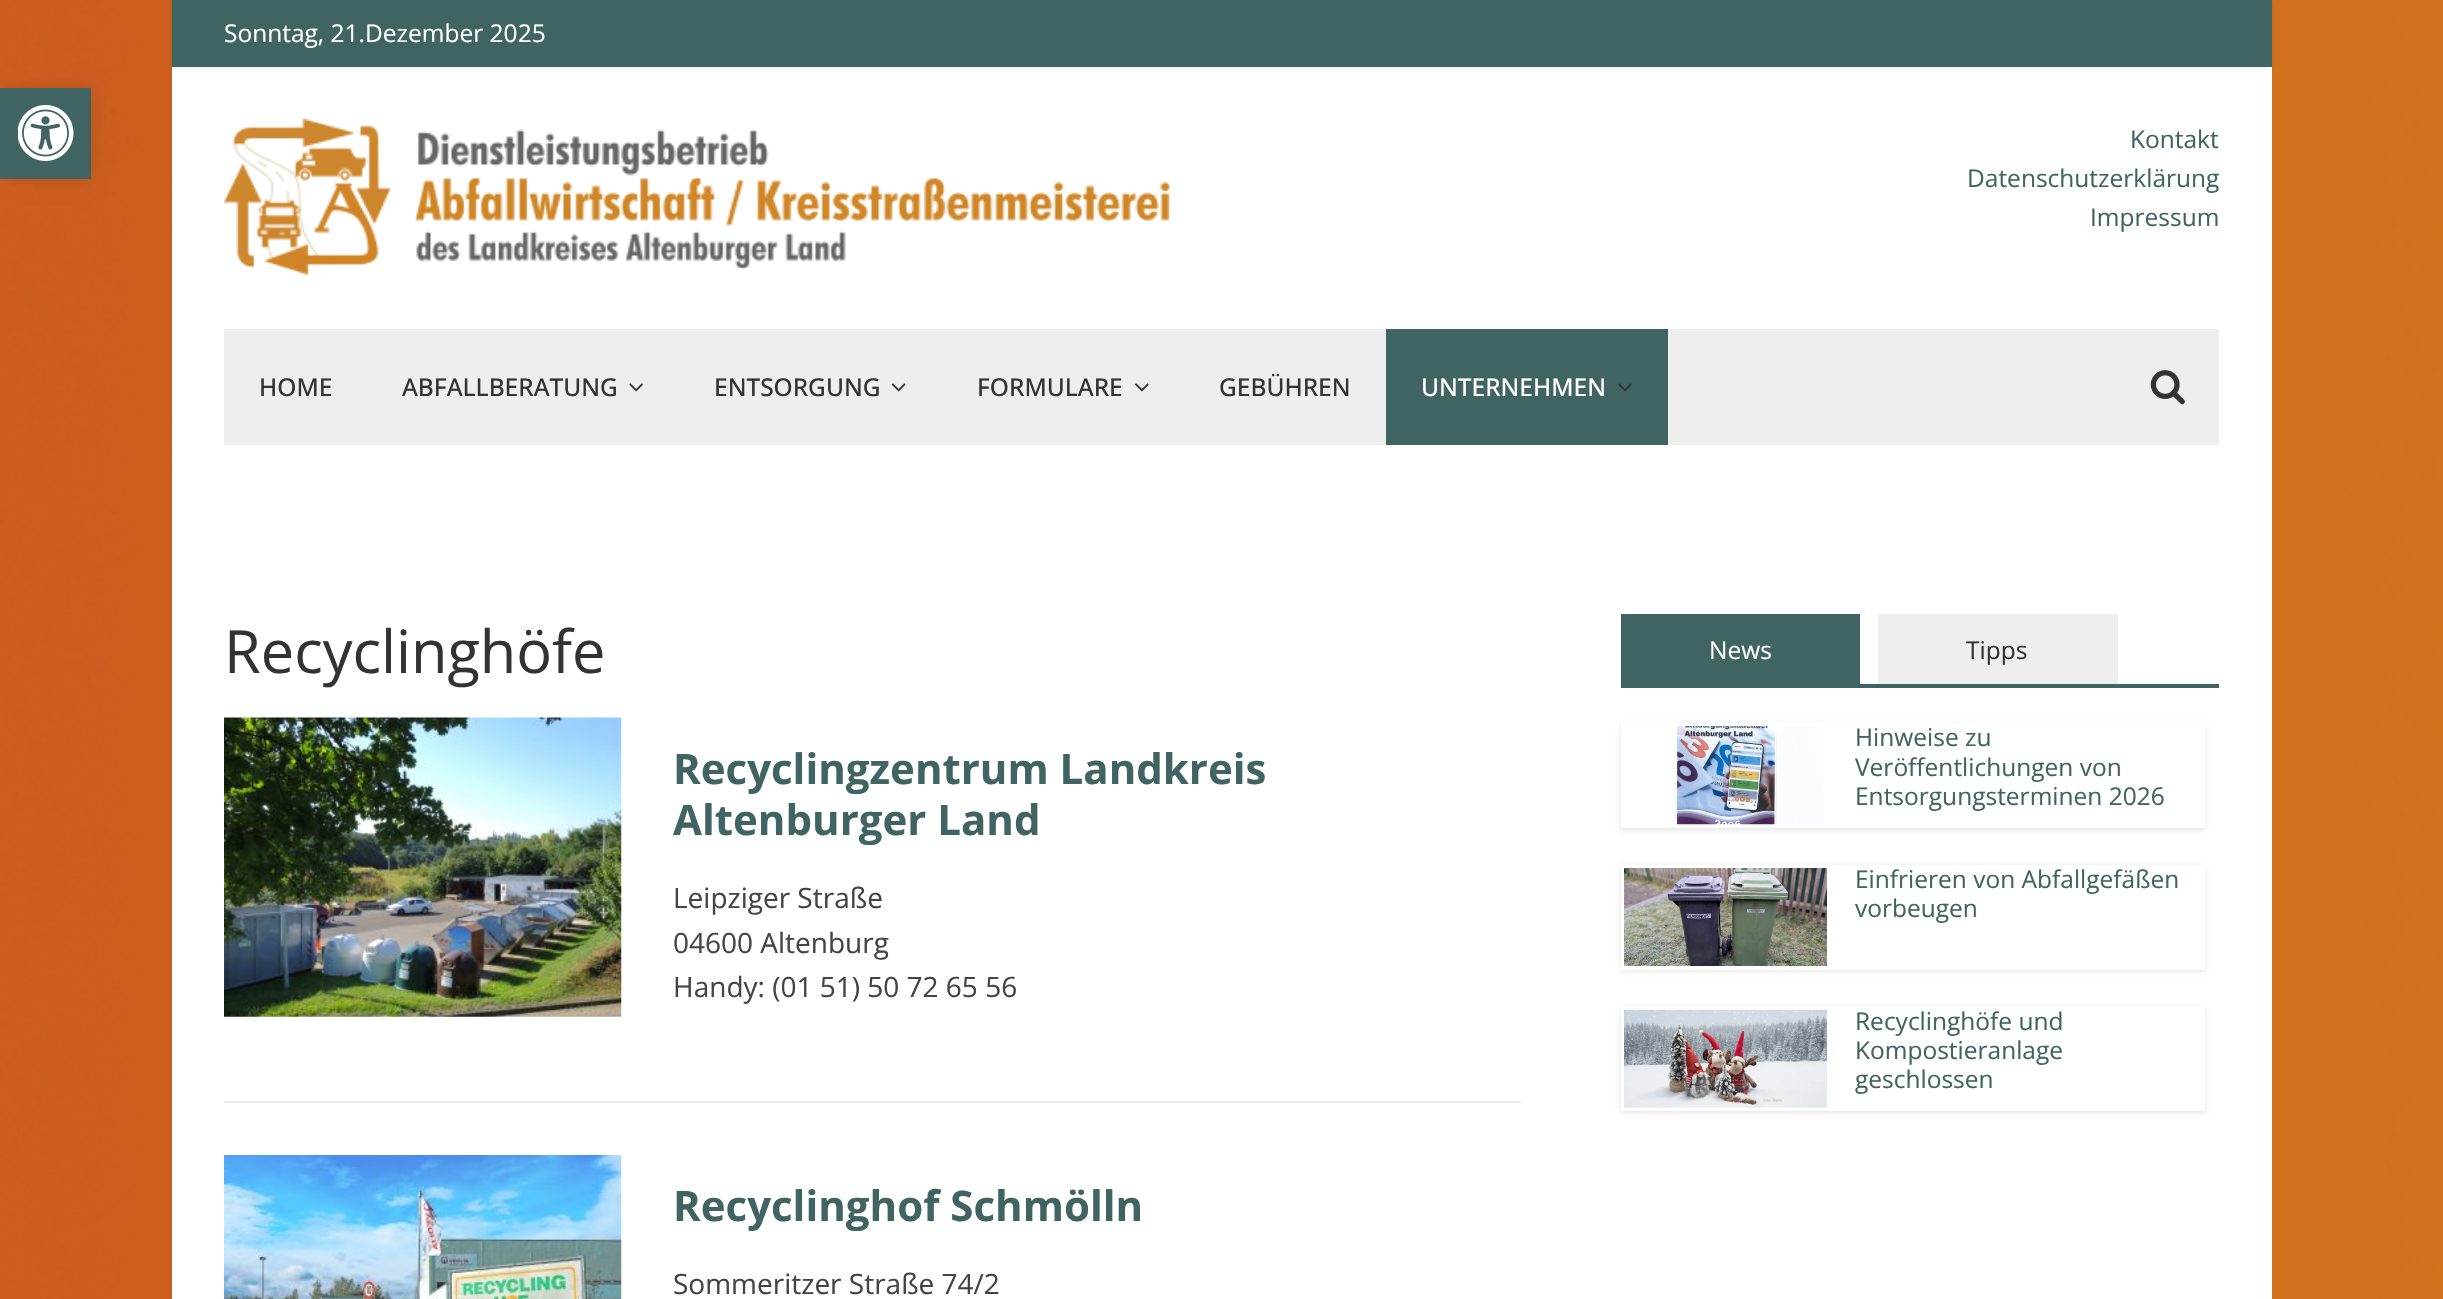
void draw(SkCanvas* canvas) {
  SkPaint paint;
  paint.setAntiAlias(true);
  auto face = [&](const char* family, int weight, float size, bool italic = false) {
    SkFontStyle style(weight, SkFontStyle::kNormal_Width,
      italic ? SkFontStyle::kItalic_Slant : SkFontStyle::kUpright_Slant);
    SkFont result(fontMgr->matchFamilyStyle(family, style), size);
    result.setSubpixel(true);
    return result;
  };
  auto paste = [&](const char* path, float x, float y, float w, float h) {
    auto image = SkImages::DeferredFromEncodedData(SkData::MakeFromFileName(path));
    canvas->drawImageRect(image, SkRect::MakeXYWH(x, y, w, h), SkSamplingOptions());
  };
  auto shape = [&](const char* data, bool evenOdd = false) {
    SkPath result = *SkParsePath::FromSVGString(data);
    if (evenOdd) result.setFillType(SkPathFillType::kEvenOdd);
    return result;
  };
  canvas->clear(0xffffffff);
  paste("img/1.png", 0, 0, 2443, 1299);
  paint.setColor(0x1a000000);
  paint.setMaskFilter(SkMaskFilter::MakeBlur(kNormal_SkBlurStyle, 9));
  canvas->drawRect(SkRect::MakeXYWH(0, 88, 91, 91), paint);
  paint.setMaskFilter(nullptr);
  paint.setColor(0xff406462);
  canvas->drawRect(SkRect::MakeXYWH(0, 88, 91, 91), paint);
  paste("img/2.png", 18, 105, 56, 56);
  paint.setColor(0xffffffff);
  canvas->drawRect(SkRect::MakeXYWH(172, 67, 2100, 1232), paint);
  paint.setColor(0x1a000000);
  paint.setMaskFilter(SkMaskFilter::MakeBlur(kNormal_SkBlurStyle, 2));
  canvas->drawRect(SkRect::MakeXYWH(172, 0, 2100, 67), paint);
  paint.setMaskFilter(nullptr);
  paint.setColor(0xff406462);
  canvas->drawRect(SkRect::MakeXYWH(172, 0, 2100, 67), paint);
  paste("img/3.png", 224, 119, 947, 157);
  paint.setColor(0xffeeeeee);
  canvas->drawRect(SkRect::MakeXYWH(224, 329, 1995, 116), paint);
  paste("img/4.png", 629, 383, 14, 9);
  paste("img/5.png", 891, 383, 15, 9);
  paste("img/6.png", 1135, 383, 14, 9);
  paint.setColor(0xff406462);
  canvas->drawRect(SkRect::MakeXYWH(1386, 329, 282, 116), paint);
  paste("img/7.png", 1618, 383, 14, 9);
  paste("img/8.png", 2150, 370, 35, 35);
  paste("img/9.png", 224, 717, 398, 300);
  paint.setColor(0xffeaeaea);
  canvas->drawRect(SkRect::MakeXYWH(224, 1101, 1297, 2), paint);
  paste("img/10.png", 224, 1155, 398, 144);
  {
    const struct { float x, y, w, h; SkColor color; } items[] = {
      {1621, 614, 239, 70, 0xff406462},
      {1878, 614, 240, 70, 0xffeeeeee},
      {1621, 684, 598, 4, 0xff406462},
    };
    for (auto [x, y, w, h, color] : items) {
      paint.setColor(color);
      canvas->drawRect(SkRect::MakeXYWH(x, y, w, h), paint);
    }
  }
  canvas->save();
  canvas->clipPath(shape("M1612 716H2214V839H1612ZM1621 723H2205V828H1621Z", true), true);
  paint.setColor(0x1a000000);
  paint.setMaskFilter(SkMaskFilter::MakeBlur(kNormal_SkBlurStyle, 2.5f));
  canvas->drawRect(SkRect::MakeXYWH(1621, 725, 584, 105), paint);
  paint.setMaskFilter(nullptr);
  canvas->restore();
  paste("img/11.png", 1672, 726, 152, 99);
  canvas->save();
  canvas->clipPath(shape("M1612 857H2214V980H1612ZM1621 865H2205V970H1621Z", true), true);
  paint.setMaskFilter(SkMaskFilter::MakeBlur(kNormal_SkBlurStyle, 2.5f));
  canvas->drawRect(SkRect::MakeXYWH(1621, 866, 584, 105), paint);
  paint.setMaskFilter(nullptr);
  canvas->restore();
  paste("img/12.png", 1624, 868, 203, 98);
  canvas->save();
  canvas->clipPath(shape("M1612 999H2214V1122H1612ZM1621 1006H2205V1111H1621Z", true), true);
  paint.setMaskFilter(SkMaskFilter::MakeBlur(kNormal_SkBlurStyle, 2.5f));
  canvas->drawRect(SkRect::MakeXYWH(1621, 1008, 584, 105), paint);
  paint.setMaskFilter(nullptr);
  canvas->restore();
  paste("img/13.png", 1624, 1009, 203, 99);
  auto f0 = face("Open Sans", 400, 24.5f);
  paint.setColor(0xffffffff);
  canvas->drawString("Sonntag, 21.Dezember 2025", 224, 42, f0, paint);
  paint.setColor(0xff406462);
  {
    const struct { const char* s; float x, y; } items[] = {
      {"Kontakt", 2130, 148},
      {"Datenschutzerklärung", 1967, 187},
      {"Impressum", 2090, 226},
    };
    for (auto [s, x, y] : items) {
      canvas->drawString(s, x, y, f0, paint);
    }
  }
  auto f1 = face("Open Sans", 500, 24.5f);
  paint.setColor(0xff333333);
  {
    const struct { const char* s; float x, y; } items[] = {
      {"HOME", 259, 396},
      {"ABFALLBERATUNG", 402, 396},
      {"ENTSORGUNG", 714, 396},
      {"FORMULARE", 977, 396},
      {"GEBÜHREN", 1219, 396},
    };
    for (auto [s, x, y] : items) {
      canvas->drawString(s, x, y, f1, paint);
    }
  }
  paint.setColor(0xffffffff);
  canvas->drawString("UNTERNEHMEN", 1421, 396, f1, paint);
  auto f2 = face("Open Sans", 400, 59.5f);
  paint.setColor(0xff333333);
  canvas->drawString("Recyclinghöfe", 224, 673, f2, paint);
  auto f3 = face("Open Sans", 700, 42);
  paint.setColor(0xff406462);
  canvas->drawString("Recyclingzentrum Landkreis", 673, 784, f3, paint);
  canvas->drawString("Altenburger Land", 673, 835, f3, paint);
  auto f4 = face("Open Sans", 400, 28);
  paint.setColor(0xff444444);
  {
    const struct { const char* s; float x, y; } items[] = {
      {"Leipziger Straße", 673, 908},
      {"04600 Altenburg", 673, 953},
      {"Handy: (01 51) 50 72 65 56", 673, 997},
    };
    for (auto [s, x, y] : items) {
      canvas->drawString(s, x, y, f4, paint);
    }
  }
  paint.setColor(0xff406462);
  canvas->drawString("Recyclinghof Schmölln", 673, 1221, f3, paint);
  paint.setColor(0xff444444);
  canvas->drawString("Sommeritzer Straße 74/2", 673, 1294, f4, paint);
  paint.setColor(0xffffffff);
  canvas->drawString("News", 1709, 659, f0, paint);
  paint.setColor(0xff333333);
  canvas->drawString("Tipps", 1966, 659, f0, paint);
  paint.setColor(0xff406462);
  {
    const struct { const char* s; float x, y; } items[] = {
      {"Hinweise zu", 1855, 746},
      {"Veröffentlichungen von", 1855, 776},
      {"Entsorgungsterminen 2026", 1855, 805},
      {"Einfrieren von Abfallgefäßen", 1855, 888},
      {"vorbeugen", 1855, 917},
      {"Recyclinghöfe und", 1855, 1030},
      {"Kompostieranlage", 1855, 1059},
      {"geschlossen", 1855, 1088},
    };
    for (auto [s, x, y] : items) {
      canvas->drawString(s, x, y, f0, paint);
    }
  }
}
